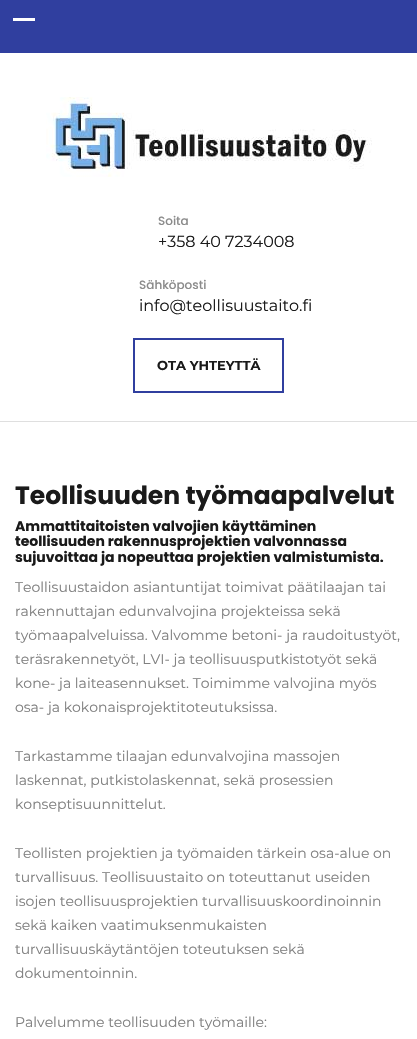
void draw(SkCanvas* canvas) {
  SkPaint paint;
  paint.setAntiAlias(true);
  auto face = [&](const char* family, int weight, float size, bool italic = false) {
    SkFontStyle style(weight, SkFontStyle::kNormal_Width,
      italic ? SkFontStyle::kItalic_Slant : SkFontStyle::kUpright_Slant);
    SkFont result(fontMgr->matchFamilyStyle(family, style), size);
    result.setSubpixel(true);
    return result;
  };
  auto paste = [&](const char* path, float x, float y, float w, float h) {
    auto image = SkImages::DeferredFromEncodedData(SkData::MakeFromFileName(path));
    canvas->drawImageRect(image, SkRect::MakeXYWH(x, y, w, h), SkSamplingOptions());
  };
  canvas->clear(0xffffffff);
  {
    const struct { float x, y, w, h; SkColor color; } items[] = {
      {0, 0, 417, 53, 0xff303f9f},
      {13, 18, 22, 3, 0xffffffff},
      {0, 421, 417, 1, 0xffdfdfdf},
    };
    for (auto [x, y, w, h, color] : items) {
      paint.setColor(color);
      canvas->drawRect(SkRect::MakeXYWH(x, y, w, h), paint);
    }
  }
  paste("img/1.png", 46, 97, 326, 80);
  paint.setStroke(true);
  paint.setStrokeWidth(2);
  paint.setColor(0xff303f9f);
  canvas->drawRect(SkRect::MakeXYWH(134, 339, 149, 53), paint);
  auto f0 = face("Poppins", 500, 12);
  paint.setStroke(false);
  paint.setColor(0xff8b8b8b);
  canvas->drawString("Soita", 158, 225, f0, paint);
  auto f1 = face("Montserrat", 400, 16);
  paint.setColor(0xff1a1a1a);
  canvas->drawString("+358 40 7234008", 158, 247, f1, paint);
  paint.setColor(0xff8b8b8b);
  canvas->drawString("Sähköposti", 139, 289, f0, paint);
  paint.setColor(0xff1a1a1a);
  canvas->drawString("info@teollisuustaito.fi", 139, 311, f1, paint);
  auto f2 = face("Montserrat", 700, 13);
  canvas->drawString("OTA YHTEYTTÄ", 157, 370, f2, paint);
  auto f3 = face("Poppins", 700, 25);
  canvas->drawString("Teollisuuden työmaapalvelut", 15, 504, f3, paint);
  auto f4 = face("Poppins", 700, 14);
  {
    const struct { const char* s; float x, y; } items[] = {
      {"Ammattitaitoisten valvojien käyttäminen", 15, 531},
      {"teollisuuden rakennusprojektien valvonnassa", 15, 546},
      {"sujuvoittaa ja nopeuttaa projektien valmistumista.", 15, 562},
    };
    for (auto [s, x, y] : items) {
      canvas->drawString(s, x, y, f4, paint);
    }
  }
  auto f5 = face("Montserrat", 400, 14);
  paint.setColor(0xff808080);
  {
    const struct { const char* s; float x, y; } items[] = {
      {"Teollisuustaidon asiantuntijat toimivat päätilaajan tai", 15, 592},
      {"rakennuttajan edunvalvojina projekteissa sekä", 15, 616},
      {"työmaapalveluissa. Valvomme betoni- ja raudoitustyöt,", 15, 640},
      {"teräsrakennetyöt, LVI- ja teollisuusputkistotyöt sekä", 15, 664},
      {"kone- ja laiteasennukset. Toimimme valvojina myös", 15, 688},
      {"osa- ja kokonaisprojektitoteutuksissa.", 15, 712},
      {"Tarkastamme tilaajan edunvalvojina massojen", 15, 761},
      {"laskennat, putkistolaskennat, sekä prosessien", 15, 785},
      {"konseptisuunnittelut.", 15, 809},
      {"Teollisten projektien ja työmaiden tärkein osa-alue on", 15, 858},
      {"turvallisuus. Teollisuustaito on toteuttanut useiden", 15, 882},
      {"isojen teollisuusprojektien turvallisuuskoordinoinnin", 15, 906},
      {"sekä kaiken vaatimuksenmukaisten", 15, 930},
      {"turvallisuuskäytäntöjen toteutuksen sekä", 15, 954},
      {"dokumentoinnin.", 15, 978},
      {"Palvelumme teollisuuden työmaille:", 15, 1027},
    };
    for (auto [s, x, y] : items) {
      canvas->drawString(s, x, y, f5, paint);
    }
  }
}
